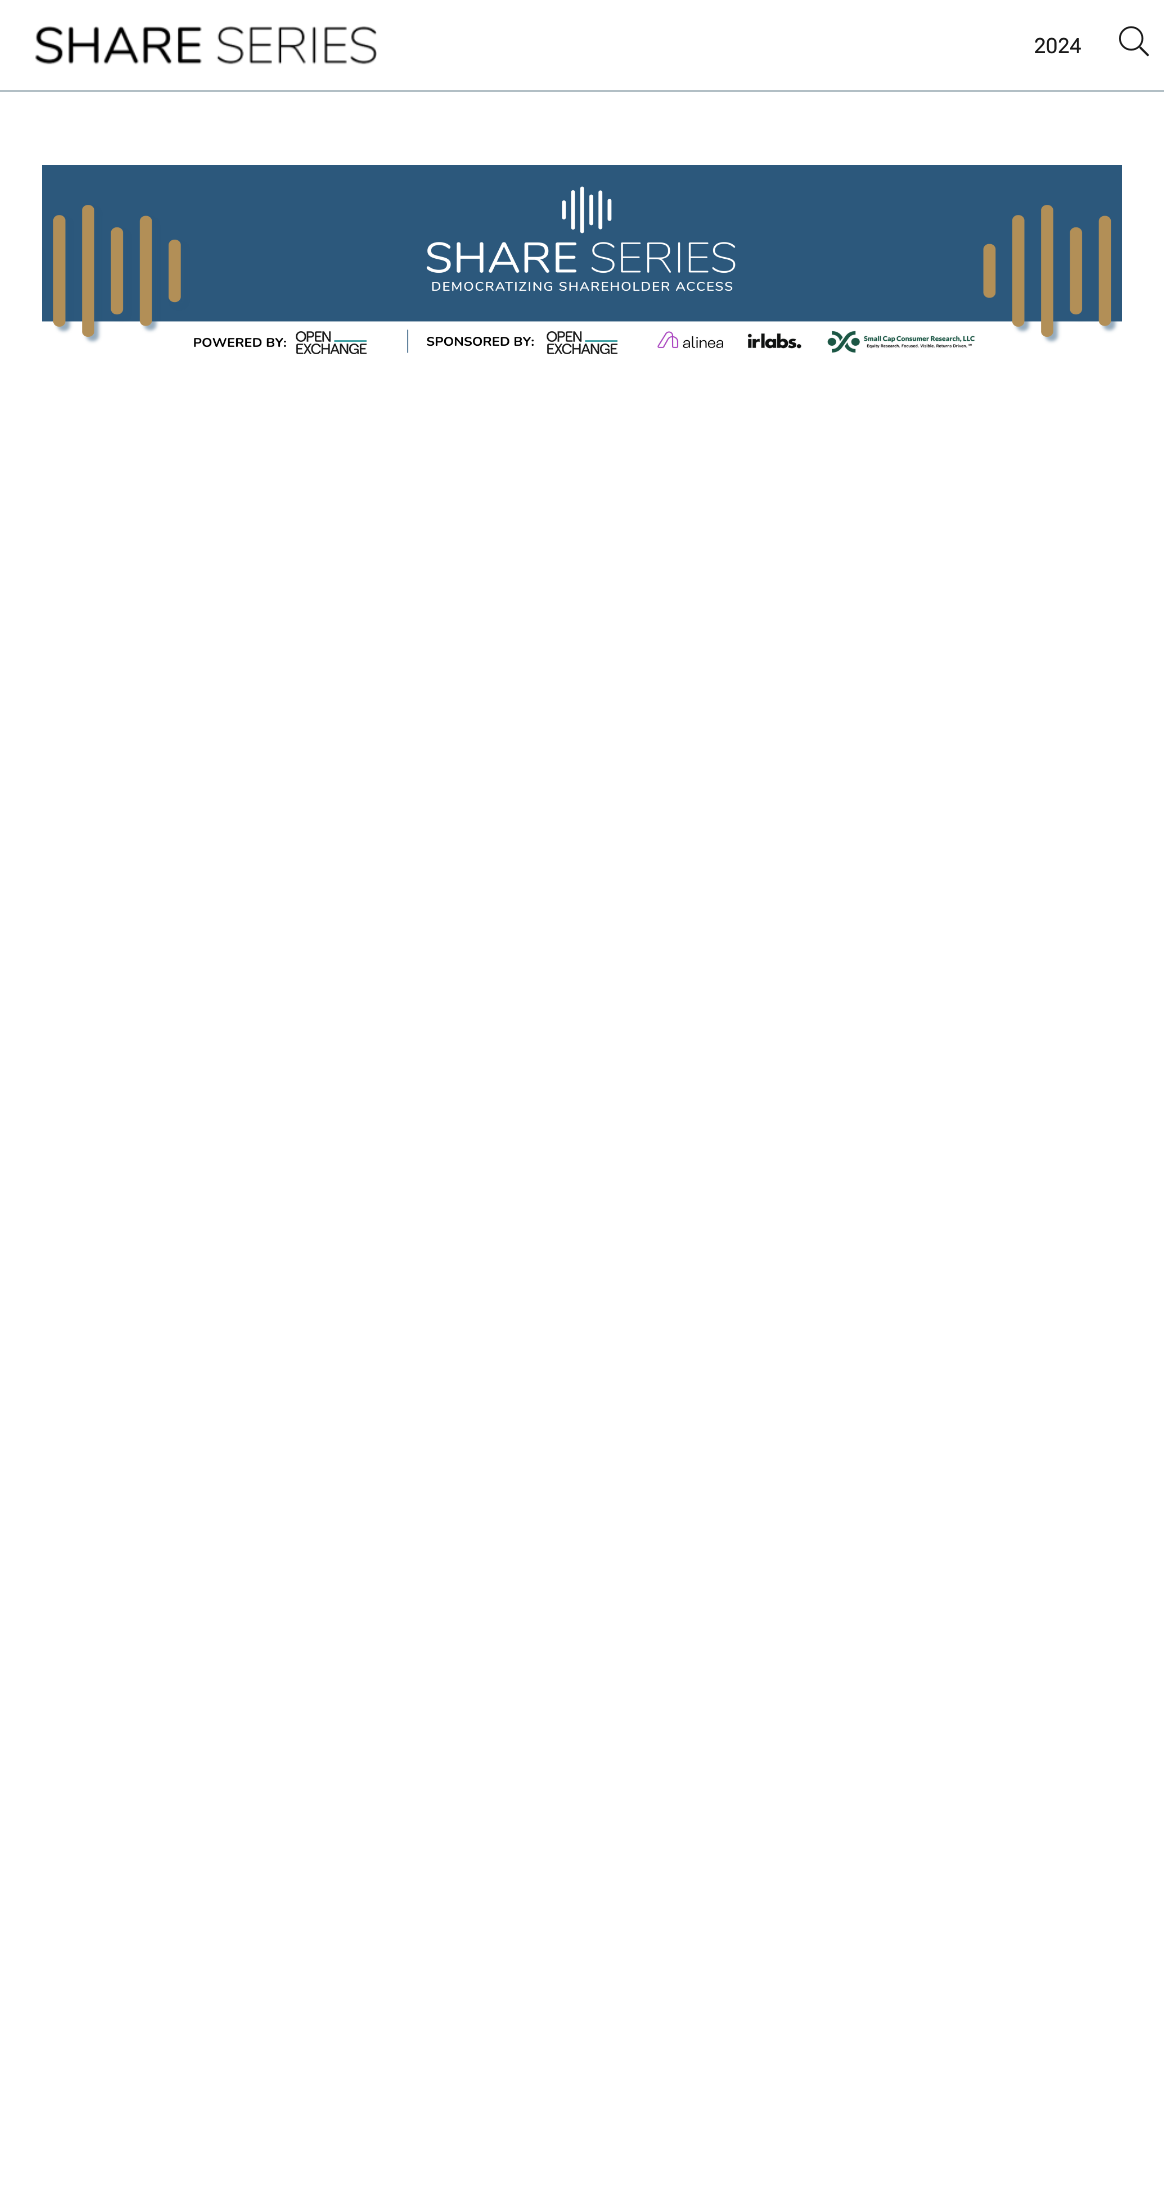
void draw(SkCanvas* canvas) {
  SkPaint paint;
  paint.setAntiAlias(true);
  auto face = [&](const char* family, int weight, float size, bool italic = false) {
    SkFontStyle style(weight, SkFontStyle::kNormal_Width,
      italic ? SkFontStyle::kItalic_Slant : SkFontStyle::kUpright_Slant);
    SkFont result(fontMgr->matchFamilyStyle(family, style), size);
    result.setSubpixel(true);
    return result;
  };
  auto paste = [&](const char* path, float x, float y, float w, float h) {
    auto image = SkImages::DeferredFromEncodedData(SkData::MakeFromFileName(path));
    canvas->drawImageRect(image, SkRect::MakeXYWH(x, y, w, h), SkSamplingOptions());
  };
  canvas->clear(0xffffffff);
  paint.setColor(0xffb2bfc5);
  canvas->drawRect(SkRect::MakeXYWH(0, 90, 1164, 2), paint);
  paste("img/1.png", 35, 26, 342, 39);
  paste("img/2.png", 1119, 26, 30, 31);
  paste("img/3.png", 42, 165, 1080, 189);
  auto f0 = face("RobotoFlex", 400, 21);
  paint.setColor(0xff1a1a1a);
  canvas->drawString("2024", 1034, 53, f0, paint);
}
